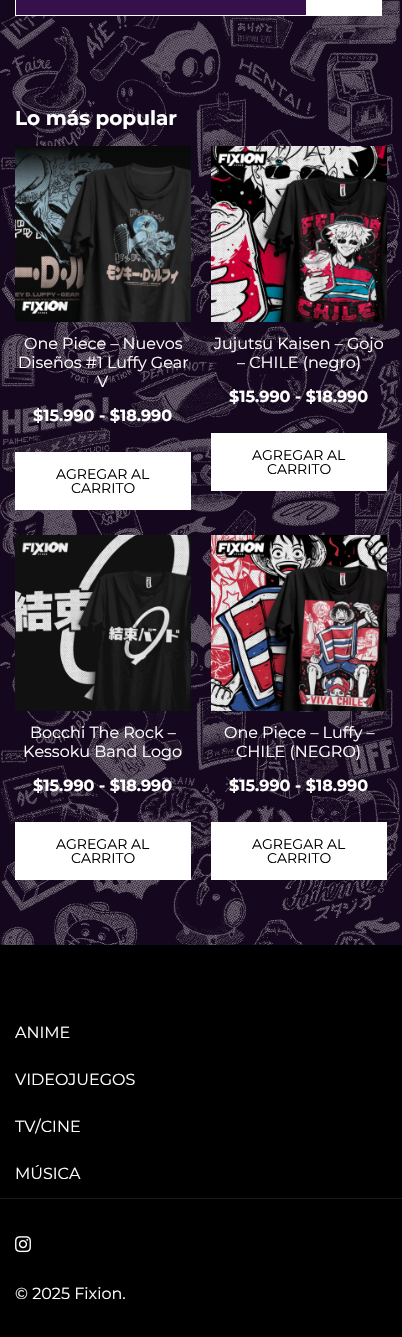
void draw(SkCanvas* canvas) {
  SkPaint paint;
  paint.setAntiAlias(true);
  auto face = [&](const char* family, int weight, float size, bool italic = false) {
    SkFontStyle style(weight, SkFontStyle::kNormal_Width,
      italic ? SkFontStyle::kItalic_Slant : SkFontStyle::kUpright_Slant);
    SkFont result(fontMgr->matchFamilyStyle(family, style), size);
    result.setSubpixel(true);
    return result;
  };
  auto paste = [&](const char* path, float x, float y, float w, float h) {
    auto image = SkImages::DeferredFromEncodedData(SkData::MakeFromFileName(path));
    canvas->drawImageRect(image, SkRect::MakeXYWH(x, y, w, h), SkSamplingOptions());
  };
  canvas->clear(0xff15071d);
  paste("img/1.png", 0, 0, 402, 945);
  paint.setColor(0xff35104a);
  canvas->drawRect(SkRect::MakeXYWH(16, 0, 290, 15), paint);
  paint.setStroke(true);
  paint.setStrokeWidth(1);
  paint.setColor(0xffffffff);
  canvas->drawRect(SkRect::MakeXYWH(15.5f, -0.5f, 295, 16), paint);
  paint.setStroke(false);
  canvas->drawRect(SkRect::MakeXYWH(306, 0, 76, 16), paint);
  paste("img/2.png", 15, 146, 176, 176);
  canvas->drawRect(SkRect::MakeXYWH(15, 452, 176, 58), paint);
  paste("img/3.png", 211, 146, 176, 176);
  canvas->drawRect(SkRect::MakeXYWH(211, 433, 176, 58), paint);
  paste("img/4.png", 15, 535, 176, 176);
  canvas->drawRect(SkRect::MakeXYWH(15, 822, 176, 58), paint);
  paste("img/5.png", 211, 535, 176, 176);
  {
    const struct { float x, y, w, h; SkColor color; } items[] = {
      {211, 822, 176, 58, 0xffffffff},
      {0, 945, 402, 392, 0xff000000},
      {0, 1198, 402, 1, 0xff1a1a1a},
    };
    for (auto [x, y, w, h, color] : items) {
      paint.setColor(color);
      canvas->drawRect(SkRect::MakeXYWH(x, y, w, h), paint);
    }
  }
  paste("img/6.png", 15, 1236, 16, 17);
  auto f0 = face("Montserrat", 700, 20);
  paint.setColor(0xffffffff);
  canvas->drawString("Lo más popular", 15, 125, f0, paint);
  auto f1 = face("Montserrat", 400, 16);
  {
    const struct { const char* s; float x, y; } items[] = {
      {"One Piece – Nuevos", 24, 349},
      {"Diseños #1 Luffy Gear", 18, 368},
      {"V", 97, 387},
    };
    for (auto [s, x, y] : items) {
      canvas->drawString(s, x, y, f1, paint);
    }
  }
  auto f2 = face("Montserrat", 700, 16);
  canvas->drawString("$15.990 - $18.990", 33, 421, f2, paint);
  auto f3 = face("Montserrat", 400, 14);
  paint.setColor(0xff000000);
  canvas->drawString("AGREGAR AL", 56, 479, f3, paint);
  canvas->drawString("CARRITO", 71, 493, f3, paint);
  paint.setColor(0xffffffff);
  canvas->drawString("Jujutsu Kaisen – Gojo", 214, 349, f1, paint);
  canvas->drawString("– CHILE (negro)", 237, 368, f1, paint);
  canvas->drawString("$15.990 - $18.990", 229, 402, f2, paint);
  paint.setColor(0xff000000);
  canvas->drawString("AGREGAR AL", 252, 460, f3, paint);
  canvas->drawString("CARRITO", 267, 474, f3, paint);
  paint.setColor(0xffffffff);
  canvas->drawString("Bocchi The Rock –", 30, 738, f1, paint);
  canvas->drawString("Kessoku Band Logo", 23, 757, f1, paint);
  canvas->drawString("$15.990 - $18.990", 33, 791, f2, paint);
  paint.setColor(0xff000000);
  canvas->drawString("AGREGAR AL", 56, 849, f3, paint);
  canvas->drawString("CARRITO", 71, 863, f3, paint);
  paint.setColor(0xffffffff);
  canvas->drawString("One Piece – Luffy –", 224, 738, f1, paint);
  canvas->drawString("CHILE (NEGRO)", 236, 757, f1, paint);
  canvas->drawString("$15.990 - $18.990", 229, 791, f2, paint);
  paint.setColor(0xff000000);
  canvas->drawString("AGREGAR AL", 252, 849, f3, paint);
  canvas->drawString("CARRITO", 267, 863, f3, paint);
  paint.setColor(0xffffffff);
  {
    const struct { const char* s; float x, y; } items[] = {
      {"ANIME", 15, 1038},
      {"VIDEOJUEGOS", 15, 1085},
      {"TV/CINE", 15, 1132},
      {"MÚSICA", 15, 1179},
      {"© 2025 Fixion.", 15, 1299},
    };
    for (auto [s, x, y] : items) {
      canvas->drawString(s, x, y, f1, paint);
    }
  }
}
